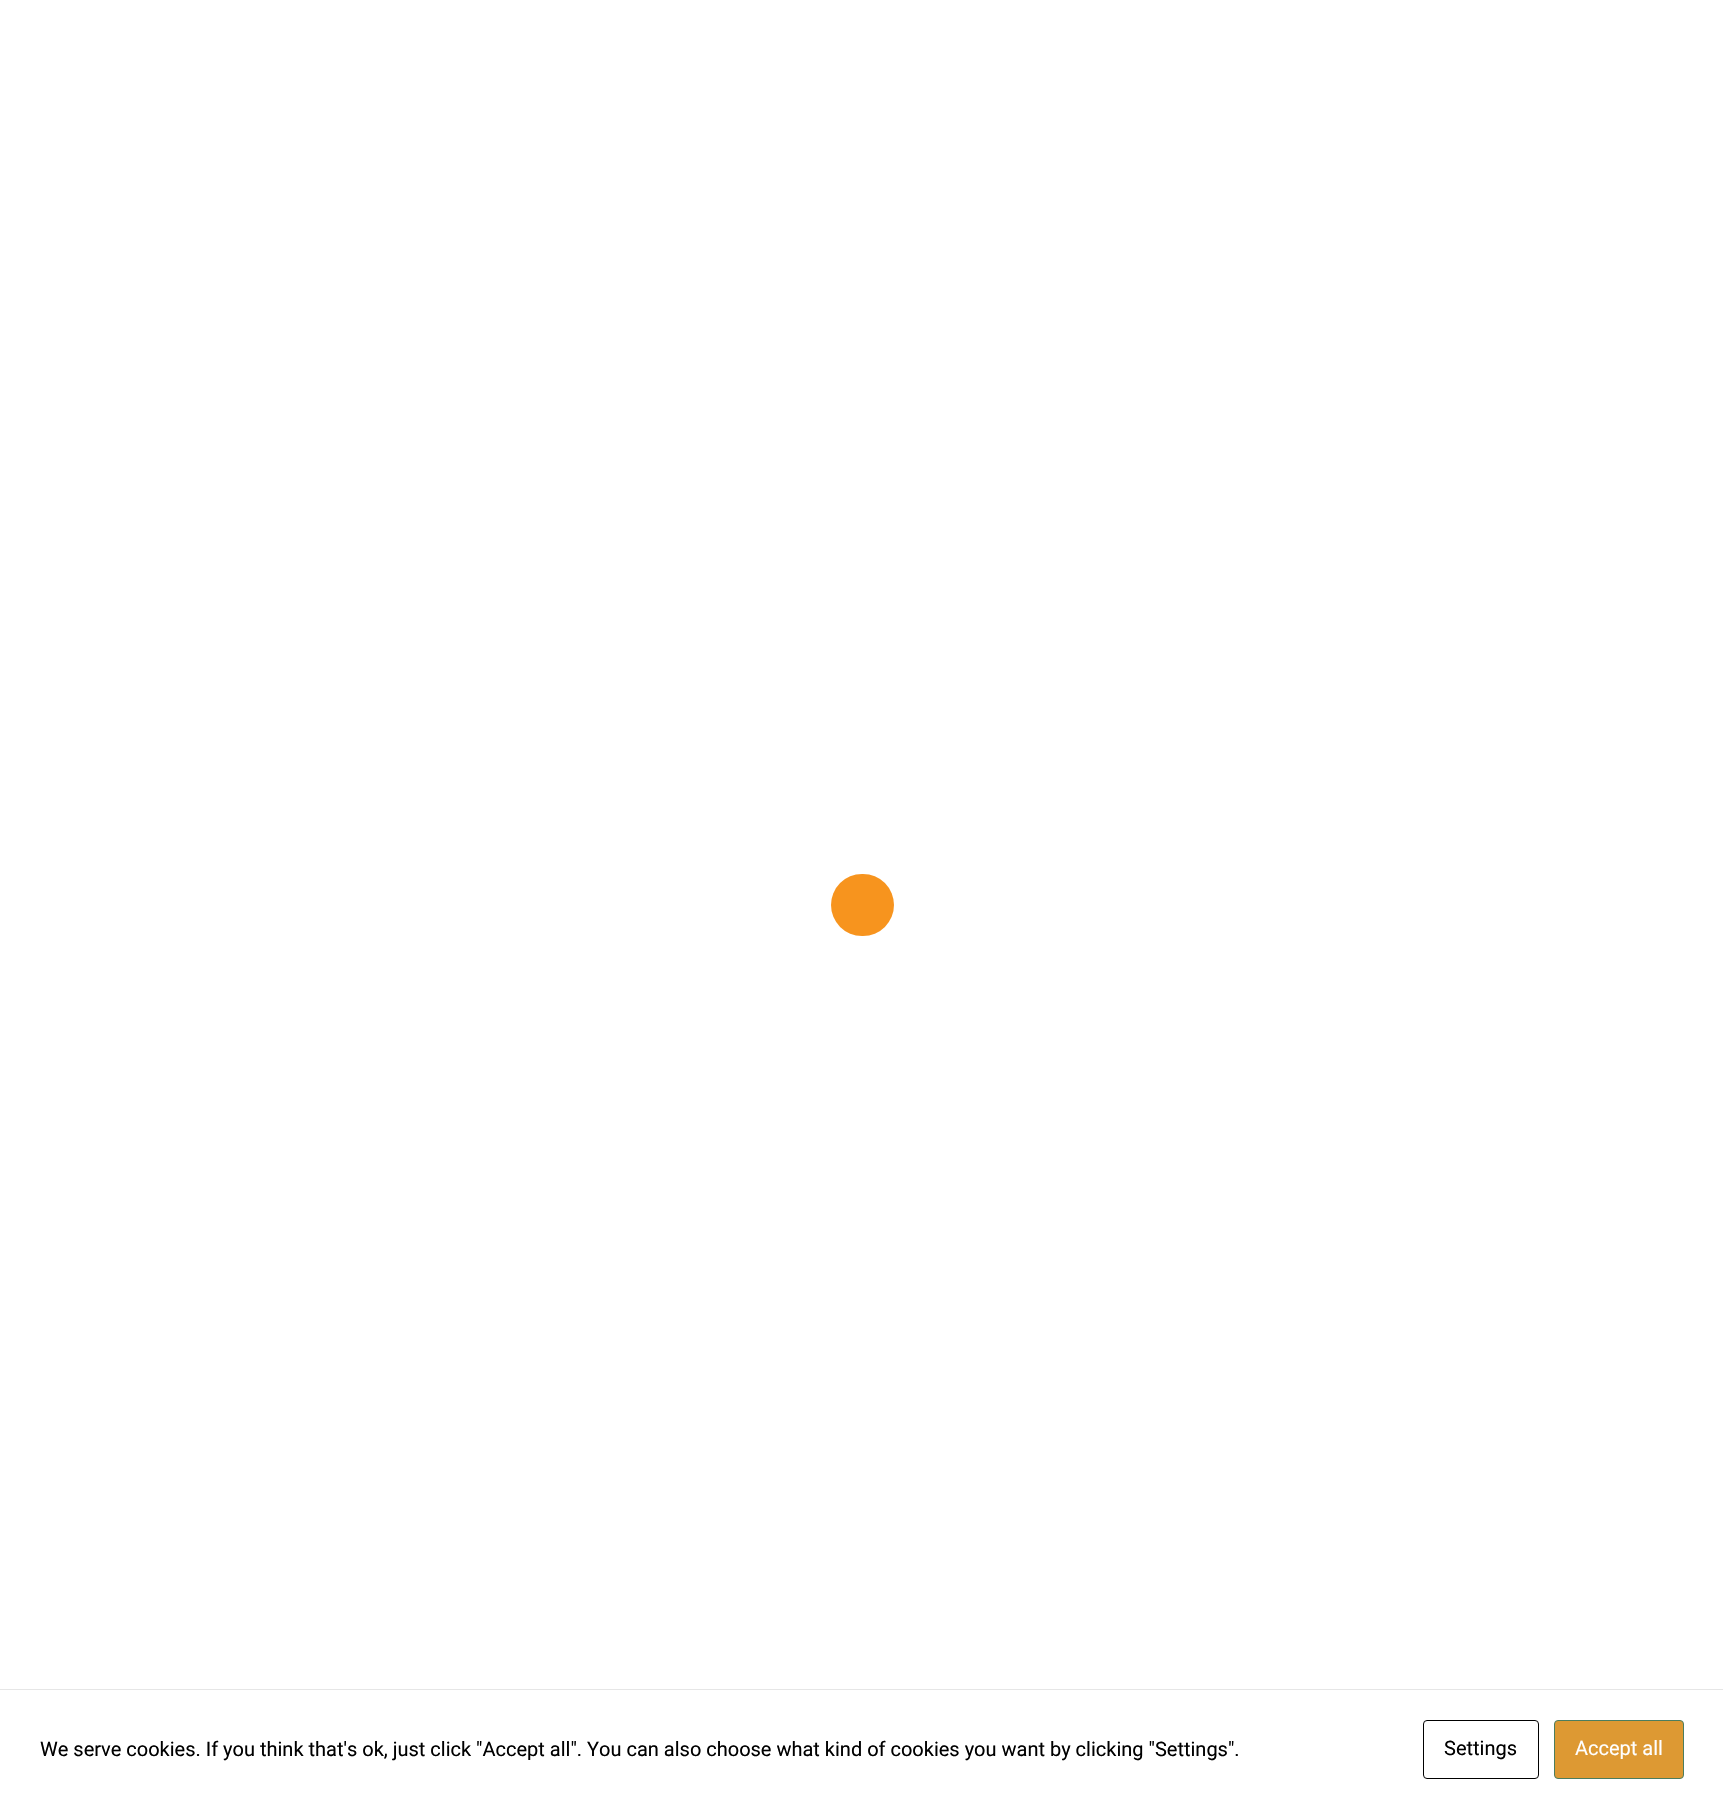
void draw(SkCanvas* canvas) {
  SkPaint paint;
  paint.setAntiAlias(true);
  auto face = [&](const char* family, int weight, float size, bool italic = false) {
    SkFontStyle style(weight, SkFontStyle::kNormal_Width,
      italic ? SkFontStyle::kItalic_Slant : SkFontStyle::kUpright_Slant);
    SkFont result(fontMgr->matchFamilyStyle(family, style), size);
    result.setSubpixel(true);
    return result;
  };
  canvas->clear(0xffffffff);
  paint.setColor(0xfff7941e);
  canvas->drawRoundRect(SkRect::MakeXYWH(831, 874, 63, 62), 31, 31, paint);
  paint.setColor(0xffe6e6e6);
  canvas->drawRect(SkRect::MakeXYWH(0, 1689, 1723, 1), paint);
  paint.setStroke(true);
  paint.setStrokeWidth(1);
  paint.setColor(0xff000000);
  canvas->drawRoundRect(SkRect::MakeXYWH(1423.5f, 1720.5f, 115, 58), 3.5f, 3.5f, paint);
  paint.setStroke(false);
  paint.setColor(0xffdd9933);
  canvas->drawRoundRect(SkRect::MakeXYWH(1554.5f, 1720.5f, 129, 58), 3.5f, 3.5f, paint);
  paint.setStroke(true);
  paint.setColor(0xff4b7d5e);
  canvas->drawRoundRect(SkRect::MakeXYWH(1554.5f, 1720.5f, 129, 58), 3.5f, 3.5f, paint);
  auto f0 = face("Roboto", 400, 20);
  paint.setStroke(false);
  paint.setColor(0xff000000);
  canvas->drawString("We serve cookies. If you think that's ok, just click \"Accept all\". You can also choose what kind of cookies you want by clicking \"Settings\".", 40, 1756, f0, paint);
  canvas->drawString("Settings", 1444, 1755, f0, paint);
  paint.setColor(0xffffffff);
  canvas->drawString("Accept all", 1575, 1755, f0, paint);
}
